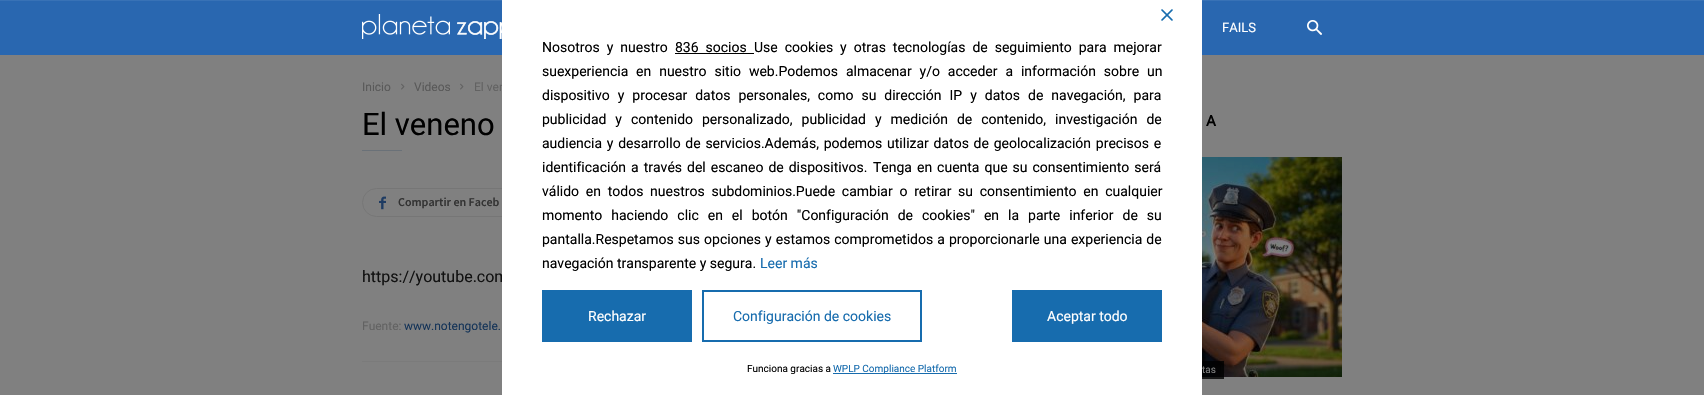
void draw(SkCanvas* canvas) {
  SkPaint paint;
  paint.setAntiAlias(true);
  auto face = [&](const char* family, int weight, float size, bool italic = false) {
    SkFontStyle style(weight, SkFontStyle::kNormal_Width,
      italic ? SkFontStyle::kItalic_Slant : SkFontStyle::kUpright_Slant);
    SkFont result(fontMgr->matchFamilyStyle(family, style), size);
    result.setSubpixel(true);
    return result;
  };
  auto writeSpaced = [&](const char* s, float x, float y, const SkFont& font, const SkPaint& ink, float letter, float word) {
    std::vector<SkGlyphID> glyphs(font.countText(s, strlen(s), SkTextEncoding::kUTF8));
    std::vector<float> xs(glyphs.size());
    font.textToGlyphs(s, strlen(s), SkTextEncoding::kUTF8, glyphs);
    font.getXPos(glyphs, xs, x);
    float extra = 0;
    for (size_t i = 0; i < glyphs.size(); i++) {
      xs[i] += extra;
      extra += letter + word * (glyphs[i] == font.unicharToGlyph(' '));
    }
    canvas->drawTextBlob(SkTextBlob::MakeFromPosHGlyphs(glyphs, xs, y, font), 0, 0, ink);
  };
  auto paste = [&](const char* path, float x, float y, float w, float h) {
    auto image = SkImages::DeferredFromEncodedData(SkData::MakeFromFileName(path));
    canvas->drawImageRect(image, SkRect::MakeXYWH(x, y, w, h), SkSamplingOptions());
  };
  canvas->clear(0xff808080);
  paint.setColor(0xff3872b6);
  canvas->drawRect(SkRect::MakeXYWH(0, 0, 1704, 1), paint);
  paint.setColor(0xff2967b0);
  canvas->drawRect(SkRect::MakeXYWH(0, 1, 1704, 54), paint);
  paste("img/1.png", 362, 14, 140, 25);
  paste("img/2.png", 1307, 20, 15, 15);
  paste("img/3.png", 401, 83, 4, 7);
  paste("img/3.png", 460, 83, 4, 7);
  paint.setColor(0xff6a7178);
  canvas->drawRect(SkRect::MakeXYWH(362, 150, 40, 1), paint);
  paint.setStroke(true);
  paint.setStrokeWidth(1);
  paint.setColor(0xff767676);
  canvas->drawRoundRect(SkRect::MakeXYWH(362.5f, 188.5f, 173, 28), 14, 14, paint);
  paste("img/4.png", 379, 196, 7, 14);
  paint.setStroke(false);
  paint.setColor(0xff7b7b7b);
  canvas->drawRect(SkRect::MakeXYWH(362, 361, 140, 1), paint);
  paste("img/5.png", 1202, 157, 140, 220);
  paint.setColor(0xcc000000);
  canvas->drawRect(SkRect::MakeXYWH(1202, 361, 22, 18), paint);
  auto f0 = face("Roboto", 400, 13);
  paint.setColor(0xffffffff);
  canvas->drawString("FAILS", 1222, 32, f0, paint);
  auto f1 = face("Roboto", 400, 12);
  paint.setColor(0xff595959);
  canvas->drawString("Inicio", 362, 91, f1, paint);
  canvas->drawString("Videos", 414, 91, f1, paint);
  paint.setColor(0xff626262);
  canvas->drawString("El ven", 474, 91, f1, paint);
  auto f2 = face("Roboto", 400, 31);
  paint.setColor(0xff000000);
  canvas->drawString("El veneno", 362, 135, f2, paint);
  auto f3 = face("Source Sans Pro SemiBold", 600, 12);
  paint.setColor(0xff333333);
  canvas->drawString("Compartir en Faceb", 398, 206, f3, paint);
  auto f4 = face("Roboto", 400, 16);
  paint.setColor(0xff111111);
  canvas->drawString("https://youtube.com", 362, 282, f4, paint);
  paint.setColor(0xff626262);
  canvas->drawString("Fuente:", 362, 330, f1, paint);
  paint.setColor(0xff153458);
  canvas->drawString("www.notengotele.", 404, 330, f1, paint);
  auto f5 = face("Roboto", 700, 15);
  paint.setColor(0xff000000);
  canvas->drawString("A", 1206, 126, f5, paint);
  auto f6 = face("Roboto", 400, 10);
  paint.setColor(0xff808080);
  canvas->drawString("tas", 1202, 373, f6, paint);
  paint.setColor(0xffffffff);
  canvas->drawRect(SkRect::MakeXYWH(502, 0, 700, 395), paint);
  paste("img/6.png", 1161, 9, 12, 12);
  auto f7 = face("Roboto", 400, 14);
  paint.setColor(0xff000000);
  {
    const struct { const char* s; float x, y; } items[] = {
      {"Nosotros y nuestro", 542, 52},
      {"836 socios", 675, 52},
      {"Use cookies y otras tecnologías de seguimiento para mejorar", 754, 52},
    };
    for (auto [s, x, y] : items) {
      writeSpaced(s, x, y, f7, paint, 0, 3.5f);
    }
  }
  canvas->drawRect(SkRect::MakeXYWH(675, 53, 79, 1), paint);
  writeSpaced("suexperiencia en nuestro sitio web.Podemos almacenar y/o acceder a información sobre un", 542, 76, f7, paint, 0, 4.4f);
  writeSpaced("dispositivo y procesar datos personales, como su dirección IP y datos de navegación, para", 542, 100, f7, paint, 0, 4.5f);
  writeSpaced("publicidad y contenido personalizado, publicidad y medición de contenido, investigación de", 542, 124, f7, paint, 0, 5.5f);
  writeSpaced("audiencia y desarrollo de servicios.Además, podemos utilizar datos de geolocalización precisos e", 542, 148, f7, paint, 0, 1.25f);
  writeSpaced("identificación a través del escaneo de dispositivos.", 542, 172, f7, paint, 0, 1.5f);
  writeSpaced("Tenga en cuenta que su consentimiento será", 873, 172, f7, paint, 0, 1.5f);
  writeSpaced("válido en todos nuestros subdominios.Puede cambiar o retirar su consentimiento en cualquier", 542, 196, f7, paint, 0, 3.25f);
  writeSpaced("momento haciendo clic en el botón \"Configuración de cookies\" en la parte inferior de su", 542, 220, f7, paint, 0, 5.5f);
  writeSpaced("pantalla.Respetamos sus opciones y estamos comprometidos a proporcionarle una experiencia de", 542, 244, f7, paint, 0, 0.6f);
  canvas->drawString("navegación transparente y segura.", 542, 268, f7, paint);
  paint.setColor(0xff176cae);
  canvas->drawString("Leer más", 760, 268, f7, paint);
  canvas->drawRect(SkRect::MakeXYWH(542, 290, 150, 52), paint);
  paint.setColor(0xffffffff);
  canvas->drawString("Rechazar", 588, 321, f7, paint);
  paint.setStroke(true);
  paint.setStrokeWidth(2);
  paint.setColor(0xff176cae);
  canvas->drawRect(SkRect::MakeXYWH(703, 291, 218, 50), paint);
  paint.setStroke(false);
  canvas->drawString("Configuración de cookies", 733, 321, f7, paint);
  canvas->drawRect(SkRect::MakeXYWH(1012, 290, 150, 52), paint);
  paint.setColor(0xffffffff);
  canvas->drawString("Aceptar todo", 1047, 321, f7, paint);
  paint.setColor(0xff000000);
  canvas->drawString("Funciona gracias a", 747, 372, f6, paint);
  paint.setColor(0xff176cae);
  canvas->drawRect(SkRect::MakeXYWH(833, 373, 124, 1), paint);
  canvas->drawString("WPLP Compliance Platform", 833, 372, f6, paint);
}
